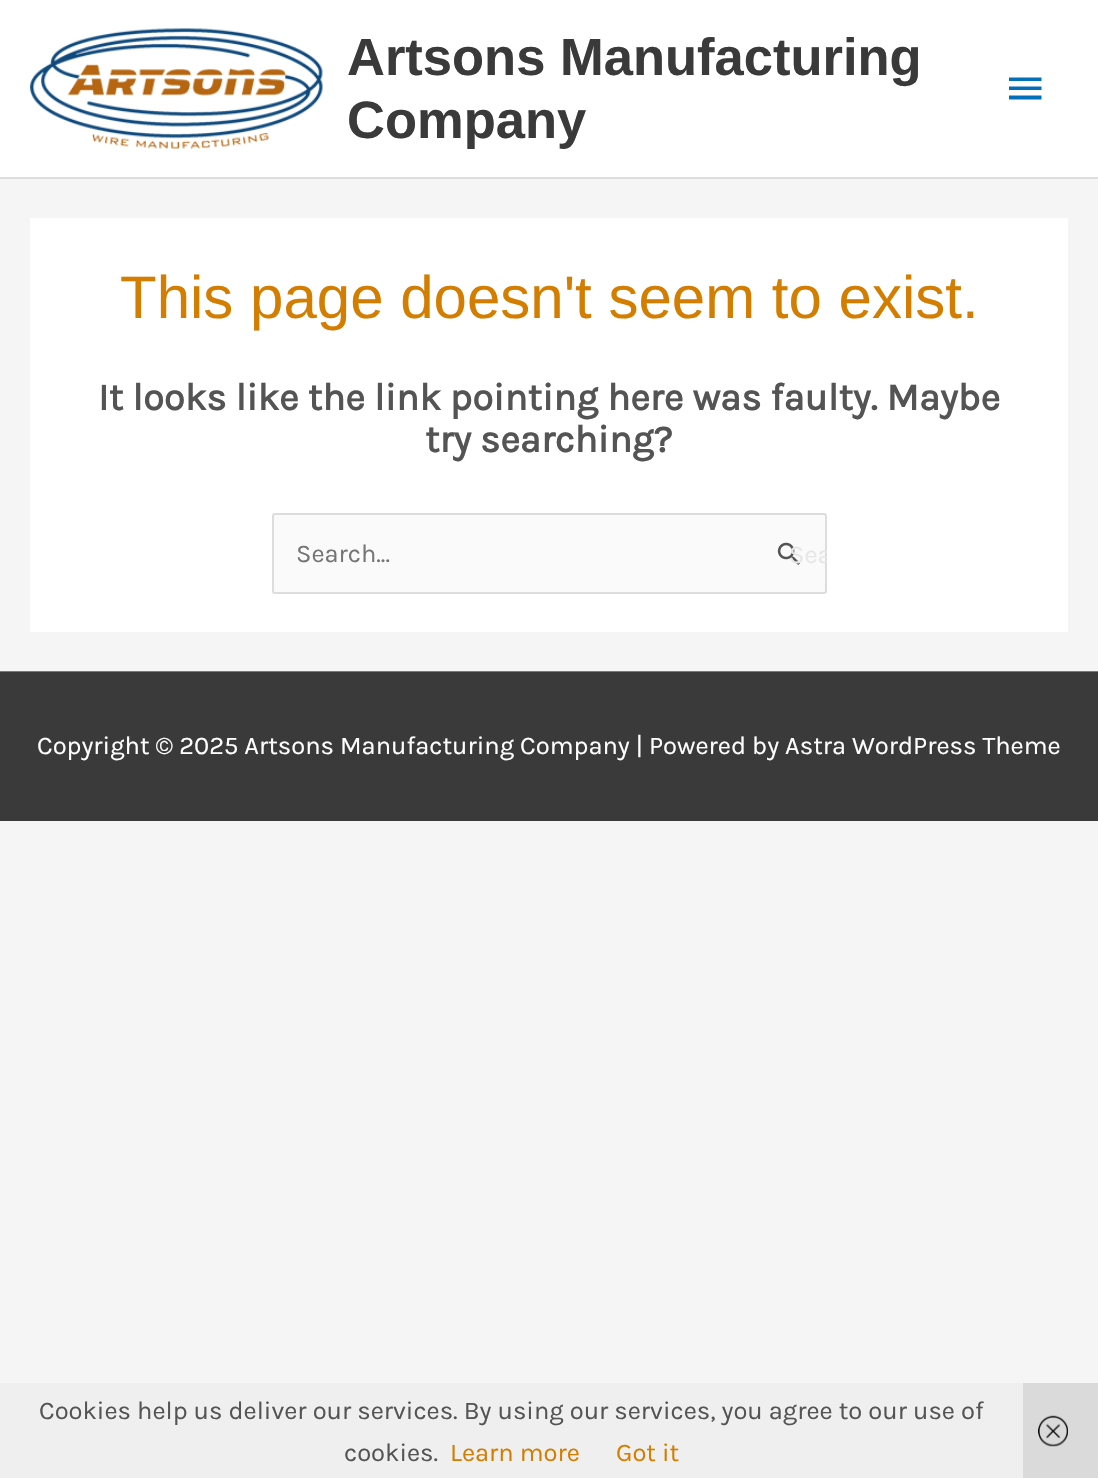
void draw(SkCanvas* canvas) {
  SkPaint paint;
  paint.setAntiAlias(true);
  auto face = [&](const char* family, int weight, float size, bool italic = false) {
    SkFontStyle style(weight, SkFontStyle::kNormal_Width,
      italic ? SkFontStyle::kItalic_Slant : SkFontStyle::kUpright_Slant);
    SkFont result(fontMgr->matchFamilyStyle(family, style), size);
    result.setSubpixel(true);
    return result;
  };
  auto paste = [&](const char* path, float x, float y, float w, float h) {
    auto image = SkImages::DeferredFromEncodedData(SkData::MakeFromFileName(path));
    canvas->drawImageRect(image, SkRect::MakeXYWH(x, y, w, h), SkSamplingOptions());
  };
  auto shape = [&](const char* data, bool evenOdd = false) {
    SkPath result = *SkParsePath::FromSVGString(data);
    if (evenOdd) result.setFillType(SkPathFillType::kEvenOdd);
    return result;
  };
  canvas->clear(0xfff5f5f5);
  paint.setColor(0xffffffff);
  canvas->drawRect(SkRect::MakeXYWH(0, 0, 1098, 177), paint);
  paint.setColor(0xffdddddd);
  canvas->drawRect(SkRect::MakeXYWH(0, 177, 1098, 2), paint);
  paste("img/1.png", 30, 28, 293, 121);
  paint.setColor(0xff0170b9);
  canvas->drawPath(shape("M1009 77.5H1041.5V81H1009ZM1009 90V86.5H1041.5V90ZM1009 99.5V95.5H1041.5V99.5Z"), paint);
  paint.setColor(0xffffffff);
  canvas->drawRect(SkRect::MakeXYWH(30, 218, 1038, 414), paint);
  paint.setColor(0xfffafafa);
  canvas->drawRoundRect(SkRect::MakeXYWH(273, 514, 553, 79), 2, 2, paint);
  paint.setStroke(true);
  paint.setStrokeWidth(2);
  paint.setColor(0xffdddddd);
  canvas->drawRoundRect(SkRect::MakeXYWH(273, 514, 553, 79), 2, 2, paint);
  paste("img/2.png", 777, 542, 23, 23);
  paint.setStroke(false);
  {
    const struct { float x, y, w, h; SkColor color; } items[] = {
      {0, 671, 1098, 1, 0xff7a7a7a},
      {0, 672, 1098, 149, 0xff3a3a3a},
      {0, 1383, 1023, 95, 0xffefefef},
      {1023, 1383, 75, 95, 0xffdadada},
    };
    for (auto [x, y, w, h, color] : items) {
      paint.setColor(color);
      canvas->drawRect(SkRect::MakeXYWH(x, y, w, h), paint);
    }
  }
  paste("img/3.png", 1038, 1415, 30, 32);
  auto f0 = face("Liberation Sans", 700, 52.5f);
  paint.setColor(0xff3a3a3a);
  canvas->drawString("Artsons Manufacturing", 347, 75, f0, paint);
  canvas->drawString("Company", 347, 138, f0, paint);
  auto f1 = face("Liberation Sans", 400, 60);
  paint.setColor(0xffd37e00);
  canvas->drawString("This page doesn't seem to exist.", 120, 318, f1, paint);
  auto f2 = face("Karla", 700, 38.25f);
  paint.setColor(0xff545454);
  canvas->drawString("It looks like the link pointing here was faulty. Maybe", 98, 410, f2, paint);
  canvas->drawString("try searching?", 425, 452, f2, paint);
  auto f3 = face("Karla", 400, 25.5f);
  paint.setColor(0xff757575);
  canvas->drawString("Search...", 296, 562, f3, paint);
  canvas->save();
  canvas->clipPath(shape("M762 513H824C825.5 513 827 514.5 827 516V596C827 597.5 825.5 599 824 599H762C760.5 599 759 597.5 759 596V516C759 514.5 760.5 513 762 513Z"), true);
  paint.setColor(0xffe7e7e7);
  canvas->drawString("Sea", 789, 563, f3, paint);
  canvas->restore();
  paint.setColor(0xffffffff);
  canvas->drawString("Copyright © 2025 Artsons Manufacturing Company | Powered by Astra WordPress Theme", 37, 754, f3, paint);
  paint.setColor(0xff545454);
  canvas->drawString("Cookies help us deliver our services. By using our services, you agree to our use of", 39, 1419, f3, paint);
  canvas->drawString("cookies.", 344, 1461, f3, paint);
  paint.setColor(0xffd37e00);
  canvas->drawString("Learn more", 450, 1461, f3, paint);
  canvas->drawString("Got it", 616, 1461, f3, paint);
}
